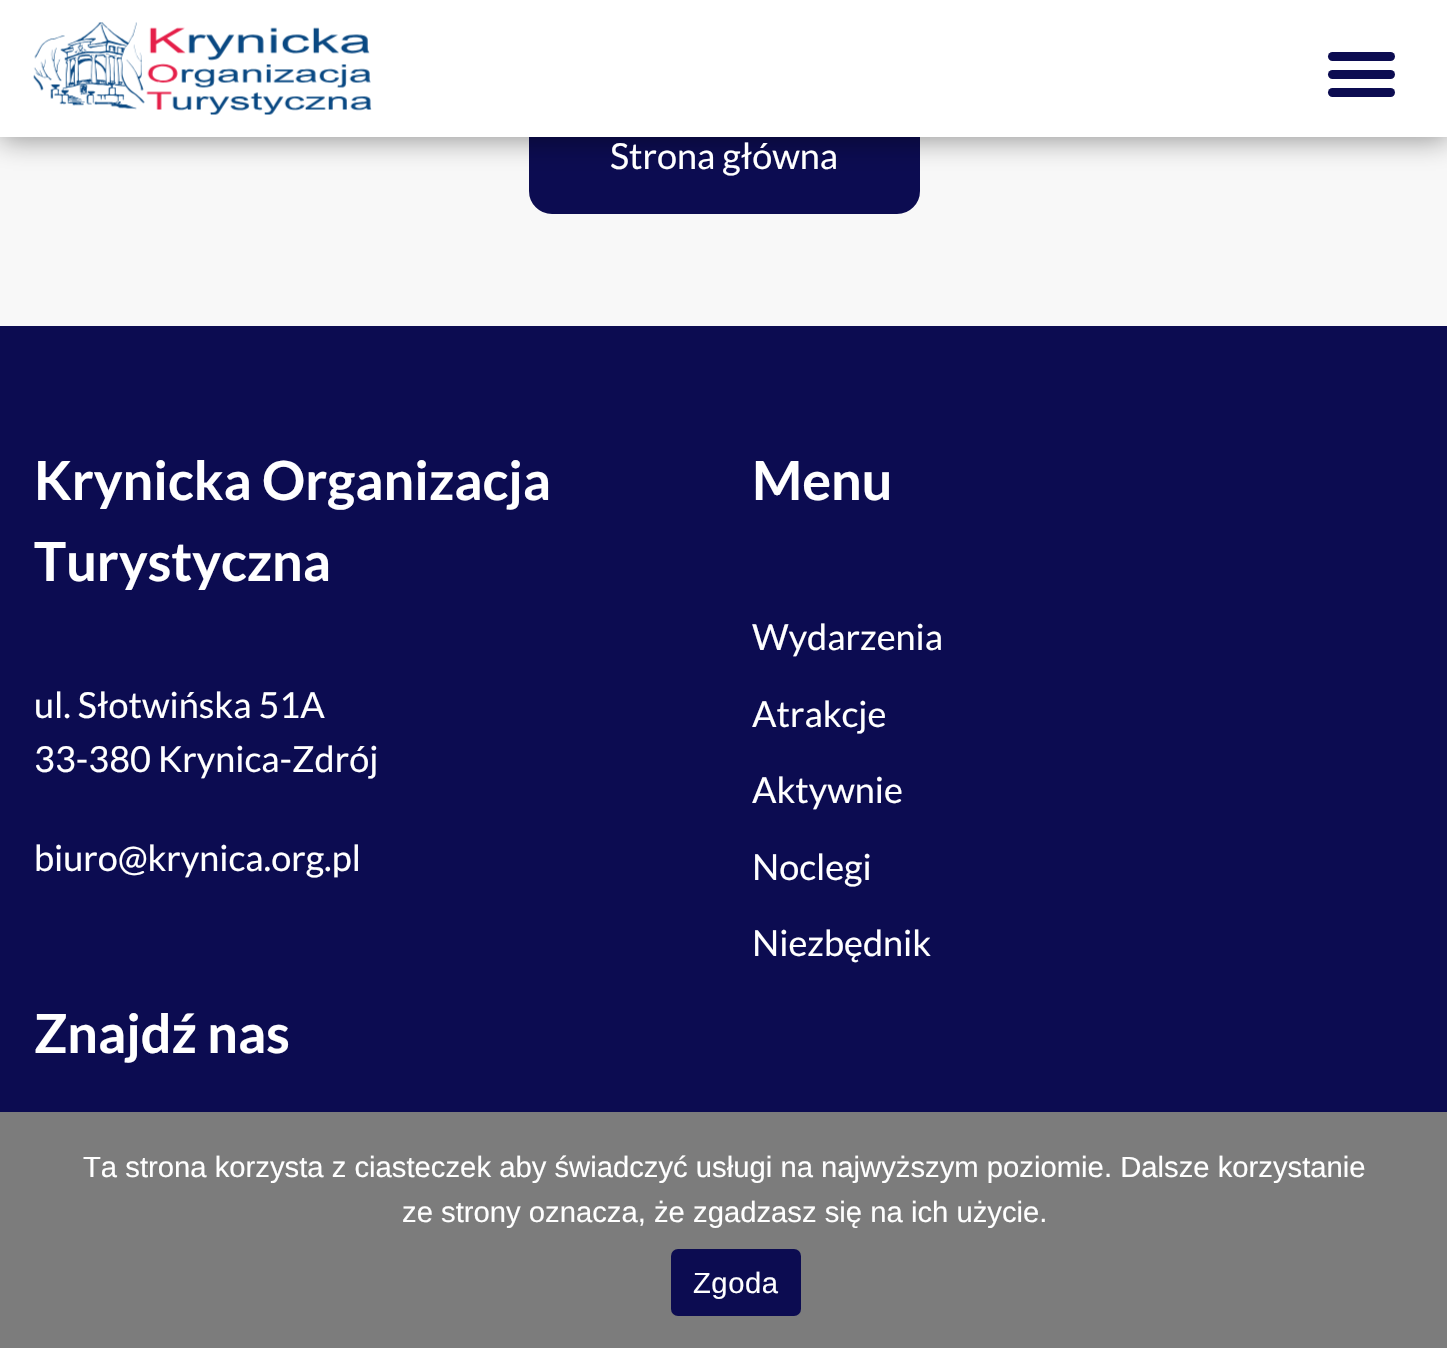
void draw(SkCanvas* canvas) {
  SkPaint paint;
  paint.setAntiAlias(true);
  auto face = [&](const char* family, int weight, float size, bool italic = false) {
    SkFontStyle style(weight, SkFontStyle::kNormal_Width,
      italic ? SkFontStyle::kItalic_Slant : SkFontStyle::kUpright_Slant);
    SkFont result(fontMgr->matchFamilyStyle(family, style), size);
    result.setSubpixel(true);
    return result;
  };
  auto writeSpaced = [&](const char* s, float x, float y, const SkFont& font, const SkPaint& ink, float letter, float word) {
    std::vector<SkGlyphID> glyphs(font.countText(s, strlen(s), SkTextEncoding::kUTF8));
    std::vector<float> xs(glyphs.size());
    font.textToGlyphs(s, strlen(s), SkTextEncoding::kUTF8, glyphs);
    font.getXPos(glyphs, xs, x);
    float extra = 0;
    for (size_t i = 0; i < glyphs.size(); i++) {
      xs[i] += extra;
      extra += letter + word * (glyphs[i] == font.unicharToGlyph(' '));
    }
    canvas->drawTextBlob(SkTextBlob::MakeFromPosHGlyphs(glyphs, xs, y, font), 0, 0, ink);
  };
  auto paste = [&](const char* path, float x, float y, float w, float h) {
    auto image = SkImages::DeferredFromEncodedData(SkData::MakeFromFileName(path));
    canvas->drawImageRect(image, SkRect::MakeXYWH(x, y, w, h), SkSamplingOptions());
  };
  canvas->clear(0xfff8f8f8);
  paint.setColor(0xff0c0c51);
  canvas->drawRoundRect(SkRect::MakeXYWH(530, 102, 389, 111), 22, 22, paint);
  paint.setStroke(true);
  paint.setStrokeWidth(2);
  canvas->drawRoundRect(SkRect::MakeXYWH(530, 102, 389, 111), 22, 22, paint);
  paint.setStroke(false);
  paint.setColor(0x66000000);
  paint.setMaskFilter(SkMaskFilter::MakeBlur(kNormal_SkBlurStyle, 13.5f));
  canvas->drawRect(SkRect::MakeXYWH(0, 2, 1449, 138), paint);
  paint.setMaskFilter(nullptr);
  paint.setColor(0xffffffff);
  canvas->drawRect(SkRect::MakeXYWH(0, 0, 1447, 137), paint);
  paste("img/1.png", 33, 22, 339, 93);
  paint.setColor(0xff0c0c51);
  canvas->drawRoundRect(SkRect::MakeXYWH(1328, 52, 67, 9), 4.5f, 4.5f, paint);
  canvas->drawRoundRect(SkRect::MakeXYWH(1328, 70, 67, 9), 4.5f, 4.5f, paint);
  canvas->drawRoundRect(SkRect::MakeXYWH(1328, 88, 67, 9), 4.5f, 4.5f, paint);
  canvas->drawRect(SkRect::MakeXYWH(0, 326, 1447, 786), paint);
  paint.setColor(0xff7c7c7c);
  canvas->drawRect(SkRect::MakeXYWH(0, 1112, 1447, 236), paint);
  paint.setColor(0xff0c0c51);
  canvas->drawRoundRect(SkRect::MakeXYWH(671, 1249, 130, 67), 7, 7, paint);
  auto f0 = face("Lato", 400, 36);
  paint.setColor(0xffffffff);
  canvas->drawString("Strona główna", 610, 169, f0, paint);
  auto f1 = face("Lato", 700, 54);
  canvas->drawString("Krynicka Organizacja", 34, 500, f1, paint);
  canvas->drawString("Turystyczna", 34, 581, f1, paint);
  {
    const struct { const char* s; float x, y; } items[] = {
      {"ul. Słotwińska 51A", 34, 718},
      {"33-380 Krynica-Zdrój", 34, 772},
      {"biuro@krynica.org.pl", 34, 871},
    };
    for (auto [s, x, y] : items) {
      canvas->drawString(s, x, y, f0, paint);
    }
  }
  canvas->drawString("Menu", 752, 500, f1, paint);
  {
    const struct { const char* s; float x, y; } items[] = {
      {"Wydarzenia", 752, 650},
      {"Atrakcje", 752, 727},
      {"Aktywnie", 752, 803},
      {"Noclegi", 752, 880},
      {"Niezbędnik", 752, 956},
    };
    for (auto [s, x, y] : items) {
      canvas->drawString(s, x, y, f0, paint);
    }
  }
  canvas->drawString("Znajdź nas", 34, 1053, f1, paint);
  auto f2 = face("Liberation Sans", 400, 29.25f);
  canvas->drawString("Ta strona korzysta z ciasteczek aby świadczyć usługi na najwyższym poziomie. Dalsze korzystanie", 83, 1177, f2, paint);
  canvas->drawString("ze strony oznacza, że zgadzasz się na ich użycie.", 402, 1222, f2, paint);
  writeSpaced("Zgoda", 693, 1293, f2, paint, 0.5f, 0);
}
